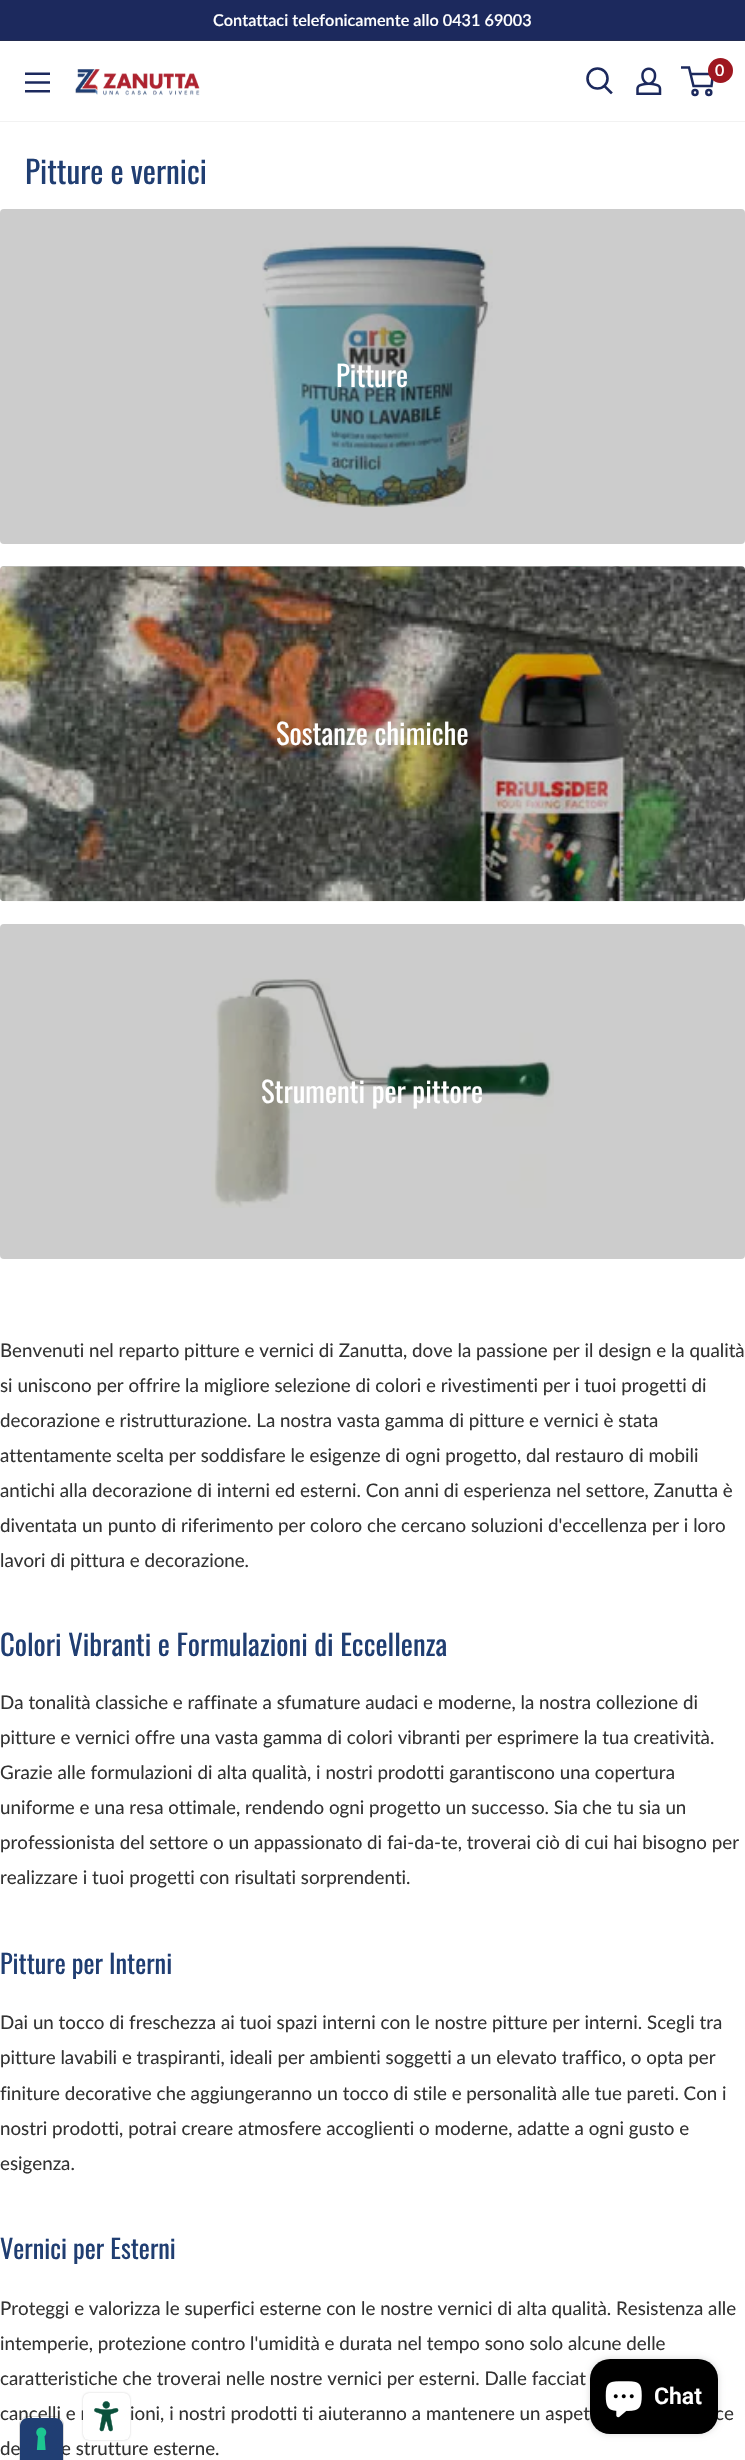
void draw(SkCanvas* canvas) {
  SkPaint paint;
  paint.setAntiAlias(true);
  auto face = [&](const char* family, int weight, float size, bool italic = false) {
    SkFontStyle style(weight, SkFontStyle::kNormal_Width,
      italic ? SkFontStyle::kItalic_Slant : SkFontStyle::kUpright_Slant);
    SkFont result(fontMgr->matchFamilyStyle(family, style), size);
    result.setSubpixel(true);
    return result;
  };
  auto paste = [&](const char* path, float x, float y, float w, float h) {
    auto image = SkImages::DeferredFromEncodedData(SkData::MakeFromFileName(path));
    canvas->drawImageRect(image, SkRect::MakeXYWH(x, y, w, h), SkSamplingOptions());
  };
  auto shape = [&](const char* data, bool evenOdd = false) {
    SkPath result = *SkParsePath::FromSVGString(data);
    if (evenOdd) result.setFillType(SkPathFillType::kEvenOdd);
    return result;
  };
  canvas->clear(0xffffffff);
  paint.setColor(0xff1c295d);
  canvas->drawRect(SkRect::MakeXYWH(0, 0, 745, 40), paint);
  paint.setColor(0xff232c50);
  canvas->drawRect(SkRect::MakeXYWH(0, 40, 745, 1), paint);
  paste("img/1.png", 25, 72, 25, 21);
  paste("img/2.png", 75, 69, 125, 27);
  paint.setStroke(true);
  paint.setStrokeWidth(2.6f);
  paint.setStrokeCap(SkPaint::kSquare_Cap);
  paint.setColor(0xff1c295d);
  canvas->drawPath(shape("M611 92.5L604.5 86"), paint);
  paint.setStrokeCap(SkPaint::kButt_Cap);
  canvas->drawCircle(597.5f, 78.5f, 10, paint);
  paste("img/3.png", 636, 67, 26, 28);
  paint.setStrokeWidth(2.5f);
  canvas->drawCircle(695, 92.5f, 2.5f, paint);
  canvas->drawCircle(708.8f, 92.5f, 2.5f, paint);
  canvas->drawPath(shape("M690.5 74H713L711.5 86H693.5L689 67.5H681"), paint);
  paint.setStroke(false);
  paint.setColor(0xff9e1720);
  canvas->drawCircle(720.5f, 70.5f, 12.5f, paint);
  paint.setColor(0xfff2f2f2);
  canvas->drawRect(SkRect::MakeXYWH(0, 121, 745, 1), paint);
  paste("img/4.png", 262, 242, 231, 266);
  paint.setColor(0x33000000);
  canvas->drawRoundRect(SkRect::MakeXYWH(0, 209, 745, 335), 4, 4, paint);
  paste("img/5.png", 0, 566, 745, 336);
  canvas->drawRoundRect(SkRect::MakeXYWH(0, 566, 745, 335), 4, 4, paint);
  paste("img/6.png", 211, 978, 343, 230);
  canvas->drawRoundRect(SkRect::MakeXYWH(0, 924, 745, 335), 4, 4, paint);
  paint.setMaskFilter(SkMaskFilter::MakeBlur(kNormal_SkBlurStyle, 1));
  canvas->drawRoundRect(SkRect::MakeXYWH(83, 2393, 47, 47), 6, 6, paint);
  paint.setMaskFilter(nullptr);
  paint.setColor(0x26000000);
  paint.setMaskFilter(SkMaskFilter::MakeBlur(kNormal_SkBlurStyle, 3));
  canvas->drawRoundRect(SkRect::MakeXYWH(590, 2359, 128, 75), 20, 20, paint);
  paint.setMaskFilter(nullptr);
  auto f0 = face("Lato", 600, 16.25f);
  paint.setColor(0xffffffff);
  canvas->drawString("Contattaci telefonicamente allo 0431 69003", 213, 26, f0, paint);
  auto f1 = face("Lato", 600, 16);
  canvas->drawString("0", 715, 76, f1, paint);
  auto f2 = face("Oswald", 400, 31.25f);
  paint.setColor(0xff203e72);
  canvas->drawString("Pitture e vernici", 25, 184, f2, paint);
  auto f3 = face("Oswald", 400, 28.75f);
  paint.setColor(0xffffffff);
  {
    const struct { const char* s; float x, y; } items[] = {
      {"Pitture", 336, 387},
      {"Sostanze chimiche", 276, 745},
      {"Strumenti per pittore", 261, 1103},
    };
    for (auto [s, x, y] : items) {
      canvas->drawString(s, x, y, f3, paint);
    }
  }
  auto f4 = face("Lato", 400, 18.75f);
  paint.setColor(0xff333333);
  {
    const struct { const char* s; float x, y; } items[] = {
      {"Benvenuti nel reparto pitture e vernici di Zanutta, dove la passione per il design e la qualità", 0, 1357},
      {"si uniscono per offrire la migliore selezione di colori e rivestimenti per i tuoi progetti di", 0, 1392},
      {"decorazione e ristrutturazione. La nostra vasta gamma di pitture e vernici è stata", 0, 1427},
      {"attentamente scelta per soddisfare le esigenze di ogni progetto, dal restauro di mobili", 0, 1462},
      {"antichi alla decorazione di interni ed esterni. Con anni di esperienza nel settore, Zanutta è", 0, 1497},
      {"diventata un punto di riferimento per coloro che cercano soluzioni d'eccellenza per i loro", 0, 1532},
      {"lavori di pittura e decorazione.", 0, 1567},
    };
    for (auto [s, x, y] : items) {
      canvas->drawString(s, x, y, f4, paint);
    }
  }
  paint.setColor(0xff203e72);
  canvas->drawString("Colori Vibranti e Formulazioni di Eccellenza", 0, 1656, f3, paint);
  paint.setColor(0xff333333);
  {
    const struct { const char* s; float x, y; } items[] = {
      {"Da tonalità classiche e raffinate a sfumature audaci e moderne, la nostra collezione di", 0, 1709},
      {"pitture e vernici offre una vasta gamma di colori vibranti per esprimere la tua creatività.", 0, 1744},
      {"Grazie alle formulazioni di alta qualità, i nostri prodotti garantiscono una copertura", 0, 1779},
      {"uniforme e una resa ottimale, rendendo ogni progetto un successo. Sia che tu sia un", 0, 1814},
      {"professionista del settore o un appassionato di fai-da-te, troverai ciò di cui hai bisogno per", 0, 1849},
      {"realizzare i tuoi progetti con risultati sorprendenti.", 0, 1884},
    };
    for (auto [s, x, y] : items) {
      canvas->drawString(s, x, y, f4, paint);
    }
  }
  auto f5 = face("Oswald", 400, 26.25f);
  paint.setColor(0xff203e72);
  canvas->drawString("Pitture per Interni", 0, 1974, f5, paint);
  paint.setColor(0xff333333);
  {
    const struct { const char* s; float x, y; } items[] = {
      {"Dai un tocco di freschezza ai tuoi spazi interni con le nostre pitture per interni. Scegli tra", 0, 2029},
      {"pitture lavabili e traspiranti, ideali per ambienti soggetti a un elevato traffico, o opta per", 0, 2064},
      {"finiture decorative che aggiungeranno un tocco di stile e personalità alle tue pareti. Con i", 0, 2100},
      {"nostri prodotti, potrai creare atmosfere accoglienti o moderne, adatte a ogni gusto e", 0, 2135},
      {"esigenza.", 0, 2170},
    };
    for (auto [s, x, y] : items) {
      canvas->drawString(s, x, y, f4, paint);
    }
  }
  paint.setColor(0xff203e72);
  canvas->drawString("Vernici per Esterni", 0, 2259, f5, paint);
  paint.setColor(0xff333333);
  {
    const struct { const char* s; float x, y; } items[] = {
      {"Proteggi e valorizza le superfici esterne con le nostre vernici di alta qualità. Resistenza alle", 0, 2315},
      {"intemperie, protezione contro l'umidità e durata nel tempo sono solo alcune delle", 0, 2350},
      {"caratteristiche che troverai nelle nostre vernici per esterni. Dalle facciat", 0, 2385},
      {"cancelli e r", 0, 2420},
      {"ioni, i nostri prodotti ti aiuteranno a mantenere un aspet", 130, 2420},
      {"ce", 715, 2420},
      {"de", 0, 2455},
      {"e strutture esterne.", 61, 2455},
    };
    for (auto [s, x, y] : items) {
      canvas->drawString(s, x, y, f4, paint);
    }
  }
  paint.setStroke(true);
  paint.setStrokeWidth(1);
  paint.setColor(0x26000000);
  canvas->drawPath(shape("M28 2416.5H55C59.5 2416.5 63.5 2420.5 63.5 2425V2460.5H19.5V2425C19.5 2420.5 23.5 2416.5 28 2416.5Z"), paint);
  paint.setStroke(false);
  paint.setColor(0xff203e73);
  canvas->drawPath(shape("M28 2418H55C59.5 2418 63 2421.5 63 2426V2460H20V2426C20 2421.5 23.5 2418 28 2418Z"), paint);
  paste("img/7.png", 36, 2427, 11, 23);
  paint.setColor(0xffffffff);
  canvas->drawRoundRect(SkRect::MakeXYWH(83, 2393, 47, 47), 6, 6, paint);
  paste("img/8.png", 94, 2401, 25, 31);
  paint.setColor(0xff000000);
  canvas->drawRoundRect(SkRect::MakeXYWH(590, 2359, 128, 75), 20, 20, paint);
  paste("img/9.png", 605, 2381, 37, 37);
  auto f6 = face("Roboto", 600, 23);
  paint.setColor(0xffffffff);
  canvas->drawString("Chat", 654, 2404, f6, paint);
}
